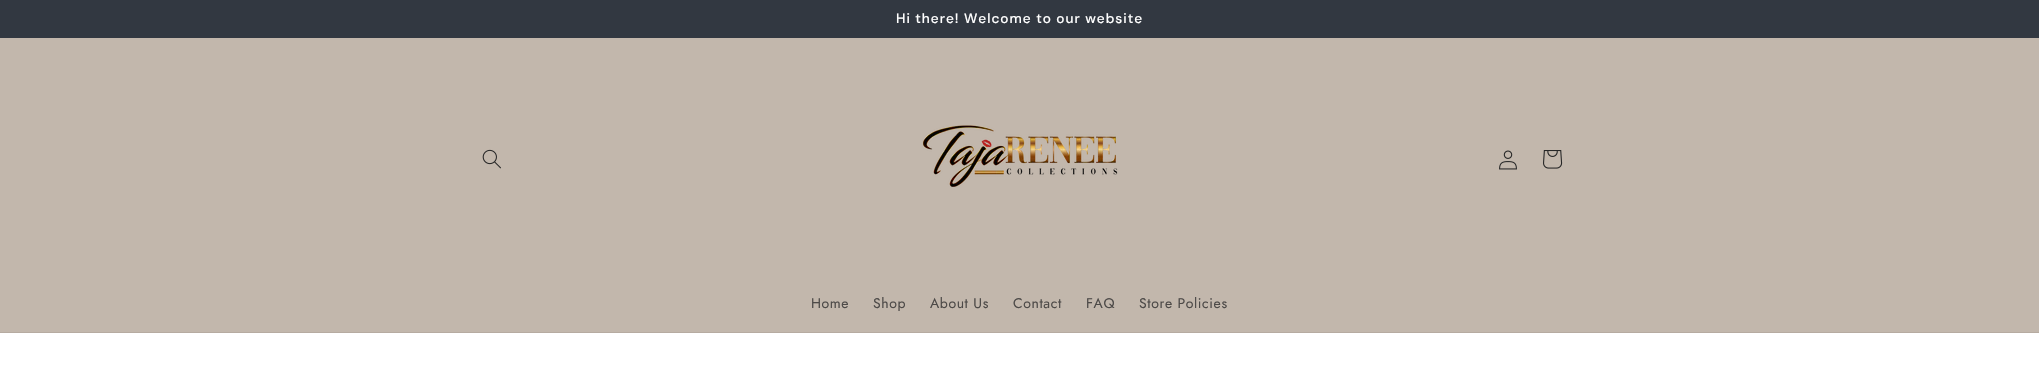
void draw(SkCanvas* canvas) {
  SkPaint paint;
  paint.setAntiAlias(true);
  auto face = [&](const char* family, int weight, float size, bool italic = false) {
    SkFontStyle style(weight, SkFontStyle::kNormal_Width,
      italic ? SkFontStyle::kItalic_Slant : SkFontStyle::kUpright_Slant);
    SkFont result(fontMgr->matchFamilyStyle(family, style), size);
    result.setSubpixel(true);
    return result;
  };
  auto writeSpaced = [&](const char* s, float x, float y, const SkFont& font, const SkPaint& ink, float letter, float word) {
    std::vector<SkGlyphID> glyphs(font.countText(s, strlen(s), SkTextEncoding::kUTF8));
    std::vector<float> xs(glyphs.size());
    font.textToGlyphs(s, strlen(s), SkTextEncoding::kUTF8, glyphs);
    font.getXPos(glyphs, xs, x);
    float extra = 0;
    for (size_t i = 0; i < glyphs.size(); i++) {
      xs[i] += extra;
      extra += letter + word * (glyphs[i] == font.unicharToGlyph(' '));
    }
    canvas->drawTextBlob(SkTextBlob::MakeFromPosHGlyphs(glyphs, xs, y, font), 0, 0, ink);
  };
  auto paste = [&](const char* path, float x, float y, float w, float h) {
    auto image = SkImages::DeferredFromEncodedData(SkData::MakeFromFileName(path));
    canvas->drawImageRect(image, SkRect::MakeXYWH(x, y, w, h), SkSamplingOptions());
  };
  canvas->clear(0xffffffff);
  {
    const struct { float x, y, w, h; SkColor color; } items[] = {
      {0, 0, 2039, 38, 0xff323841},
      {0, 38, 2039, 294, 0xffc2b7ac},
      {0, 332, 2039, 1, 0xffb6aba1},
    };
    for (auto [x, y, w, h, color] : items) {
      paint.setColor(color);
      canvas->drawRect(SkRect::MakeXYWH(x, y, w, h), paint);
    }
  }
  paste("img/1.png", 482, 149, 19, 20);
  paste("img/2.png", 922, 125, 196, 62);
  paste("img/3.png", 1499, 150, 18, 20);
  paste("img/4.png", 1543, 150, 20, 19);
  auto f0 = face("DM Sans", 500, 13.6f);
  paint.setColor(0xffffffff);
  writeSpaced("Hi there! Welcome to our website", 896, 23, f0, paint, 1, 0);
  auto f1 = face("Jost", 400, 14);
  paint.setColor(0xff4d4a48);
  {
    const struct { const char* s; float x, y; } items[] = {
      {"Home", 811, 308},
      {"Shop", 873, 308},
      {"About Us", 930, 308},
      {"Contact", 1013, 308},
      {"FAQ", 1086, 308},
      {"Store Policies", 1139, 308},
    };
    for (auto [s, x, y] : items) {
      writeSpaced(s, x, y, f1, paint, 0.6f, 0);
    }
  }
}
